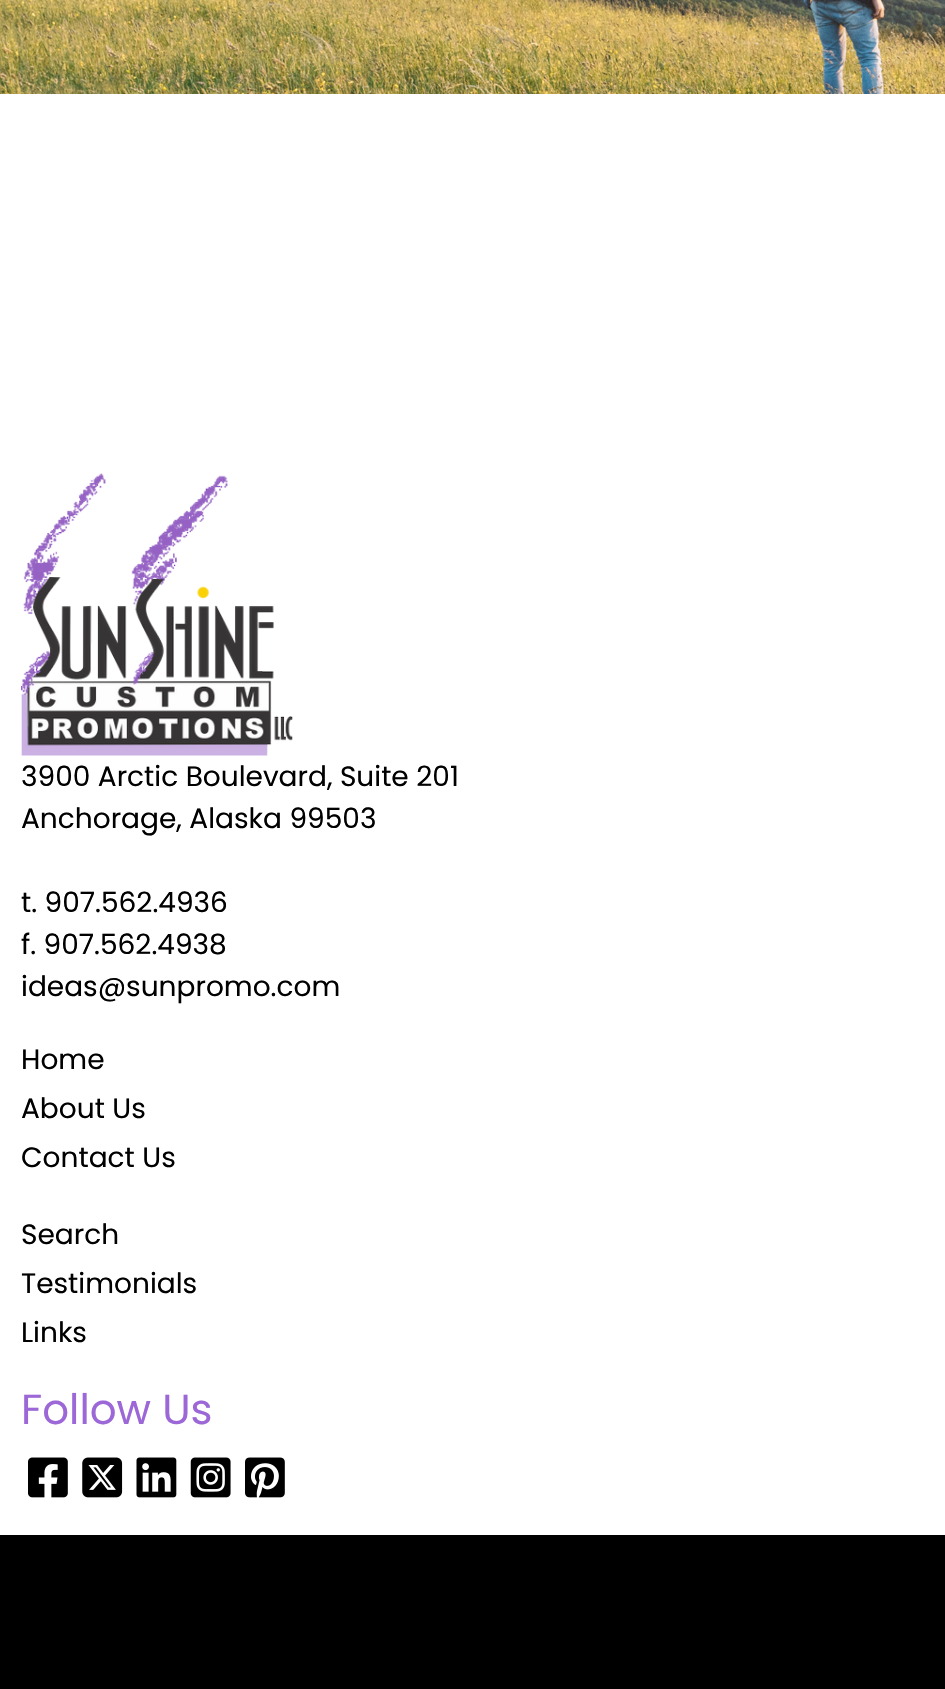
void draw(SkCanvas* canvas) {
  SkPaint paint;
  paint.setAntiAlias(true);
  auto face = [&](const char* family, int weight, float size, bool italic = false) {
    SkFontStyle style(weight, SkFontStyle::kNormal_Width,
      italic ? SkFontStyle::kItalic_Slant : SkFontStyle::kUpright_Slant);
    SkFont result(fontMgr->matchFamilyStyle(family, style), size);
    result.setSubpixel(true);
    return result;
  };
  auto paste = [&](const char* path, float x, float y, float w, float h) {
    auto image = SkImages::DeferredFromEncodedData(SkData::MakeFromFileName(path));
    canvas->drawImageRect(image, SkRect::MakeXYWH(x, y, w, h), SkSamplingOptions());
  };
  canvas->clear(0xffffffff);
  paste("img/1.png", 0, 0, 945, 94);
  paste("img/2.png", 21, 473, 272, 283);
  paste("img/3.png", 28, 1457, 40, 41);
  paste("img/4.png", 82, 1457, 41, 41);
  paste("img/5.png", 136, 1457, 41, 41);
  paste("img/6.png", 190, 1457, 41, 41);
  paste("img/7.png", 245, 1457, 40, 41);
  paint.setColor(0xff000000);
  canvas->drawRect(SkRect::MakeXYWH(0, 1535, 945, 154), paint);
  auto f0 = face("Poppins", 400, 28);
  {
    const struct { const char* s; float x, y; } items[] = {
      {"3900 Arctic Boulevard, Suite 201", 21, 786},
      {"Anchorage, Alaska 99503", 21, 828},
      {"t. 907.562.4936", 21, 912},
      {"f. 907.562.4938", 21, 954},
      {"ideas@sunpromo.com", 21, 996},
      {"Home", 21, 1069},
      {"About Us", 21, 1118},
      {"Contact Us", 21, 1167},
      {"Search", 21, 1244},
      {"Testimonials", 21, 1293},
      {"Links", 21, 1342},
    };
    for (auto [s, x, y] : items) {
      canvas->drawString(s, x, y, f0, paint);
    }
  }
  auto f1 = face("Poppins", 400, 42);
  paint.setColor(0xff9c67d6);
  canvas->drawString("Follow Us", 21, 1424, f1, paint);
}
